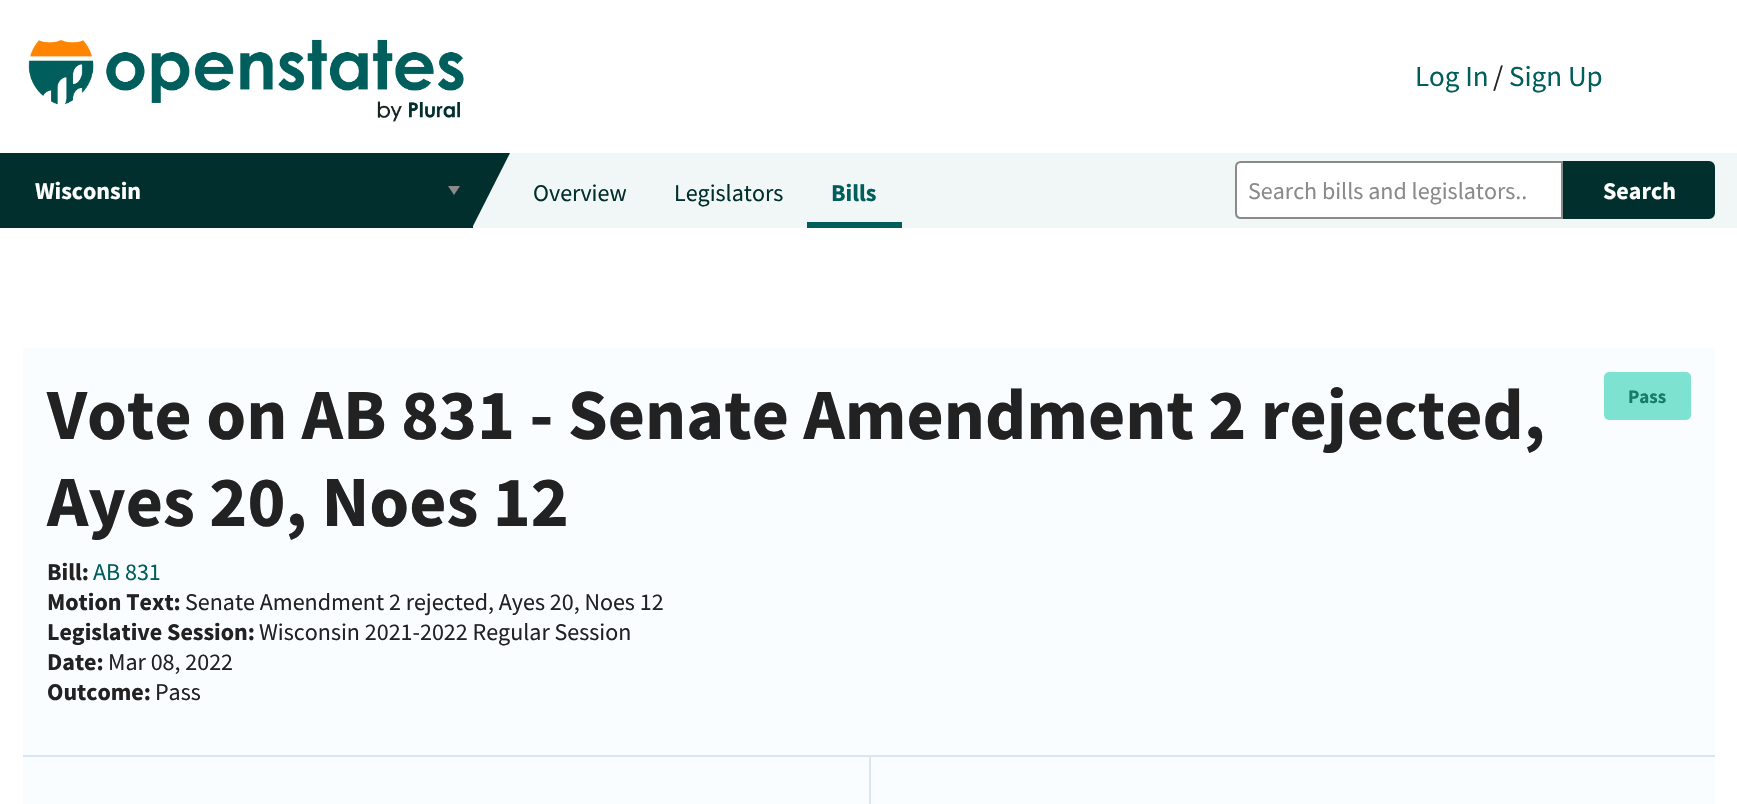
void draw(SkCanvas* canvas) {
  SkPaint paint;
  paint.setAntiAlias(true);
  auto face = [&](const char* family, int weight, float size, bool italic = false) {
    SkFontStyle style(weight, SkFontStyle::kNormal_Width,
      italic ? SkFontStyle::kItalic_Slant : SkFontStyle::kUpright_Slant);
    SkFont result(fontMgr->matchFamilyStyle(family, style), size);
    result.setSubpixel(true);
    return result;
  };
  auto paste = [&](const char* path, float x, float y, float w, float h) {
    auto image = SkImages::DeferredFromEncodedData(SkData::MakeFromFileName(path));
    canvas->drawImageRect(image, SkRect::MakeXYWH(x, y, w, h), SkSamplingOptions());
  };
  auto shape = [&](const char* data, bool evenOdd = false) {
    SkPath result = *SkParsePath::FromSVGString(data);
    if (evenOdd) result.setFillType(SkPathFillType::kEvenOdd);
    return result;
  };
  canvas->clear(0xffffffff);
  paste("img/1.png", 28, 39, 436, 83);
  paint.setColor(0xff002f2e);
  canvas->drawRect(SkRect::MakeXYWH(0, 153, 473, 75), paint);
  paint.setColor(0xfff1f6f6);
  canvas->drawRect(SkRect::MakeXYWH(473, 153, 1264, 75), paint);
  paint.setColor(0xff8a8a8a);
  canvas->drawPath(shape("M448 186H460L454 195Z"), paint);
  paint.setColor(0xff002f2e);
  canvas->drawPath(shape("M472 228V153H510Z"), paint);
  paint.setColor(0xff005e5c);
  canvas->drawRect(SkRect::MakeXYWH(807, 222, 95, 6), paint);
  paint.setColor(0xffffffff);
  canvas->drawPath(shape("M1241 162H1562V218H1241C1238 218 1236 216 1236 213V167C1236 164 1238 162 1241 162Z"), paint);
  paint.setStroke(true);
  paint.setStrokeWidth(2);
  paint.setColor(0xff8a8a8a);
  canvas->drawPath(shape("M1241 162H1562V218H1241C1238 218 1236 216 1236 213V167C1236 164 1238 162 1241 162Z"), paint);
  paint.setStroke(false);
  paint.setColor(0xff002f2e);
  canvas->drawPath(shape("M1564.5 162.5H1709C1711.5 162.5 1713.5 164.5 1713.5 167V213C1713.5 215.5 1711.5 217.5 1709 217.5H1564.5Z"), paint);
  paint.setStroke(true);
  paint.setStrokeWidth(3);
  canvas->drawPath(shape("M1564.5 162.5H1709C1711.5 162.5 1713.5 164.5 1713.5 167V213C1713.5 215.5 1711.5 217.5 1709 217.5H1564.5Z"), paint);
  paint.setStroke(false);
  paint.setColor(0xfff9fdff);
  canvas->drawRect(SkRect::MakeXYWH(23, 348, 1692, 456), paint);
  paint.setColor(0xff7de3d0);
  canvas->drawRoundRect(SkRect::MakeXYWH(1604, 372, 87, 48), 5, 5, paint);
  paint.setColor(0xffdbe6f1);
  canvas->drawRect(SkRect::MakeXYWH(23, 755, 1692, 2), paint);
  canvas->drawRect(SkRect::MakeXYWH(869, 756, 2, 48), paint);
  auto f0 = face("Source Sans Pro", 400, 29);
  paint.setColor(0xff005e5c);
  canvas->drawString("Log In", 1415, 86, f0, paint);
  paint.setColor(0xff222222);
  canvas->drawString("/", 1493, 86, f0, paint);
  paint.setColor(0xff005e5c);
  canvas->drawString("Sign Up", 1509, 86, f0, paint);
  auto f1 = face("Source Sans Pro", 700, 24);
  paint.setColor(0xffffffff);
  canvas->drawString("Wisconsin", 35, 199, f1, paint);
  auto f2 = face("Source Sans Pro", 400, 24);
  paint.setColor(0xff002f2e);
  canvas->drawString("Overview", 533, 201, f2, paint);
  canvas->drawString("Legislators", 674, 201, f2, paint);
  paint.setColor(0xff005e5c);
  canvas->drawString("Bills", 831, 201, f1, paint);
  paint.setColor(0xff8a8a8a);
  canvas->drawString("Search bills and legislators..", 1248, 199, f2, paint);
  paint.setColor(0xffffffff);
  canvas->drawString("Search", 1603, 199, f1, paint);
  auto f3 = face("Source Sans Pro", 700, 72);
  paint.setColor(0xff222222);
  canvas->drawString("Vote on AB 831 - Senate Amendment 2 rejected,", 47, 439, f3, paint);
  canvas->drawString("Ayes 20, Noes 12", 47, 526, f3, paint);
  auto f4 = face("Source Sans Pro", 700, 19);
  paint.setColor(0xff1a7a68);
  canvas->drawString("Pass", 1628, 403, f4, paint);
  paint.setColor(0xff222222);
  canvas->drawString("Bill:", 47, 580, f1, paint);
  paint.setColor(0xff005e5c);
  canvas->drawString("AB 831", 93, 580, f2, paint);
  paint.setColor(0xff222222);
  canvas->drawString("Motion Text:", 47, 610, f1, paint);
  canvas->drawString("Senate Amendment 2 rejected, Ayes 20, Noes 12", 185, 610, f2, paint);
  canvas->drawString("Legislative Session:", 47, 640, f1, paint);
  canvas->drawString("Wisconsin 2021-2022 Regular Session", 259, 640, f2, paint);
  canvas->drawString("Date:", 47, 670, f1, paint);
  canvas->drawString("Mar 08, 2022", 108, 670, f2, paint);
  canvas->drawString("Outcome:", 47, 700, f1, paint);
  canvas->drawString("Pass", 155, 700, f2, paint);
}
